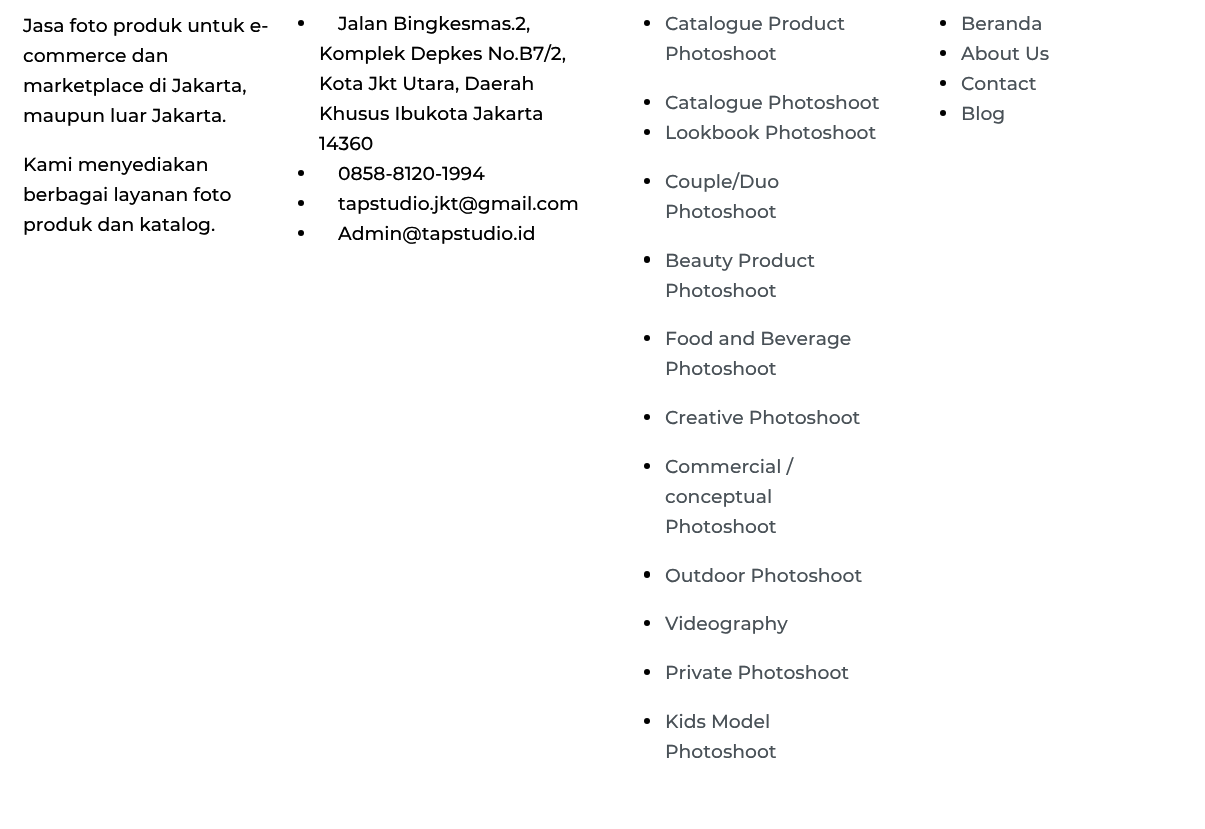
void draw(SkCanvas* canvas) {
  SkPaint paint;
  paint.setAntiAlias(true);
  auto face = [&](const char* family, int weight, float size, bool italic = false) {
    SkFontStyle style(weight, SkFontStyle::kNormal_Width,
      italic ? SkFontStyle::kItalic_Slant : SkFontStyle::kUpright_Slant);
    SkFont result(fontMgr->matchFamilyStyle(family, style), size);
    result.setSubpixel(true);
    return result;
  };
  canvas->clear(0xffffffff);
  paint.setColor(0xff000000);
  canvas->drawCircle(301, 23, 3, paint);
  canvas->drawCircle(301, 173, 3, paint);
  canvas->drawCircle(301, 203, 3, paint);
  canvas->drawCircle(301, 233, 3, paint);
  canvas->drawCircle(647, 23, 3, paint);
  canvas->drawCircle(647, 102, 3, paint);
  canvas->drawCircle(647, 132, 3, paint);
  canvas->drawCircle(647, 181, 3, paint);
  canvas->drawRoundRect(SkRect::MakeXYWH(644, 256, 6, 7), 3, 3, paint);
  canvas->drawCircle(647, 338, 3, paint);
  canvas->drawCircle(647, 417, 3, paint);
  canvas->drawCircle(647, 466, 3, paint);
  canvas->drawRoundRect(SkRect::MakeXYWH(644, 571, 6, 7), 3, 3, paint);
  canvas->drawCircle(647, 623, 3, paint);
  canvas->drawCircle(647, 672, 3, paint);
  canvas->drawCircle(647, 721, 3, paint);
  canvas->drawCircle(943, 23, 3, paint);
  canvas->drawCircle(943, 53, 3, paint);
  canvas->drawCircle(943, 83, 3, paint);
  canvas->drawCircle(943, 113, 3, paint);
  auto f0 = face("Montserrat", 500, 18.75f);
  {
    const struct { const char* s; float x, y; } items[] = {
      {"Jasa foto produk untuk e-", 23, 32},
      {"commerce dan", 23, 62},
      {"marketplace di Jakarta,", 23, 92},
      {"maupun luar Jakarta.", 23, 122},
      {"Kami menyediakan", 23, 171},
      {"berbagai layanan foto", 23, 201},
      {"produk dan katalog.", 23, 231},
      {"Jalan Bingkesmas.2,", 338, 30},
      {"Komplek Depkes No.B7/2,", 319, 60},
      {"Kota Jkt Utara, Daerah", 319, 90},
      {"Khusus Ibukota Jakarta", 319, 120},
      {"14360", 319, 150},
      {"0858-8120-1994", 338, 180},
      {"tapstudio.jkt@gmail.com", 338, 210},
      {"Admin@tapstudio.id", 338, 240},
    };
    for (auto [s, x, y] : items) {
      canvas->drawString(s, x, y, f0, paint);
    }
  }
  paint.setColor(0xff495157);
  {
    const struct { const char* s; float x, y; } items[] = {
      {"Catalogue Product", 665, 30},
      {"Photoshoot", 665, 60},
      {"Catalogue Photoshoot", 665, 109},
      {"Lookbook Photoshoot", 665, 139},
      {"Couple/Duo", 665, 188},
      {"Photoshoot", 665, 218},
      {"Beauty Product", 665, 267},
      {"Photoshoot", 665, 297},
      {"Food and Beverage", 665, 345},
      {"Photoshoot", 665, 375},
      {"Creative Photoshoot", 665, 424},
      {"Commercial /", 665, 473},
      {"conceptual", 665, 503},
      {"Photoshoot", 665, 533},
      {"Outdoor Photoshoot", 665, 582},
      {"Videography", 665, 630},
      {"Private Photoshoot", 665, 679},
      {"Kids Model", 665, 728},
      {"Photoshoot", 665, 758},
      {"Beranda", 961, 30},
      {"About Us", 961, 60},
      {"Contact", 961, 90},
      {"Blog", 961, 120},
    };
    for (auto [s, x, y] : items) {
      canvas->drawString(s, x, y, f0, paint);
    }
  }
}
